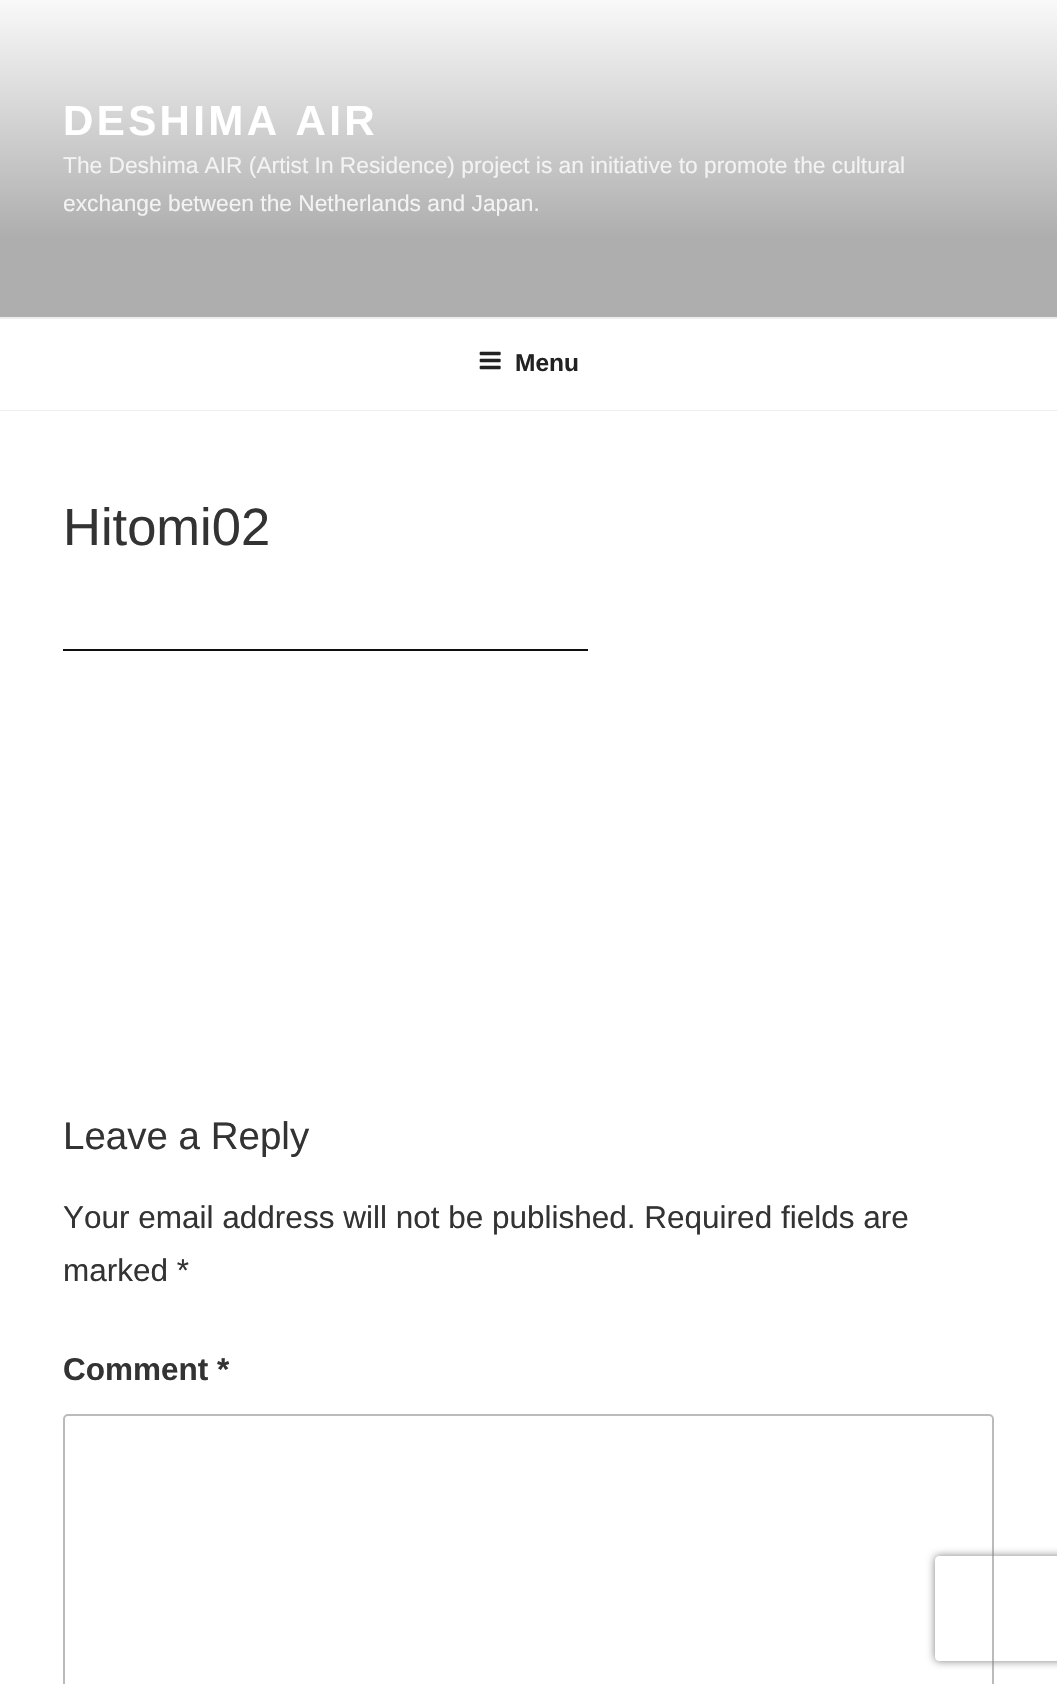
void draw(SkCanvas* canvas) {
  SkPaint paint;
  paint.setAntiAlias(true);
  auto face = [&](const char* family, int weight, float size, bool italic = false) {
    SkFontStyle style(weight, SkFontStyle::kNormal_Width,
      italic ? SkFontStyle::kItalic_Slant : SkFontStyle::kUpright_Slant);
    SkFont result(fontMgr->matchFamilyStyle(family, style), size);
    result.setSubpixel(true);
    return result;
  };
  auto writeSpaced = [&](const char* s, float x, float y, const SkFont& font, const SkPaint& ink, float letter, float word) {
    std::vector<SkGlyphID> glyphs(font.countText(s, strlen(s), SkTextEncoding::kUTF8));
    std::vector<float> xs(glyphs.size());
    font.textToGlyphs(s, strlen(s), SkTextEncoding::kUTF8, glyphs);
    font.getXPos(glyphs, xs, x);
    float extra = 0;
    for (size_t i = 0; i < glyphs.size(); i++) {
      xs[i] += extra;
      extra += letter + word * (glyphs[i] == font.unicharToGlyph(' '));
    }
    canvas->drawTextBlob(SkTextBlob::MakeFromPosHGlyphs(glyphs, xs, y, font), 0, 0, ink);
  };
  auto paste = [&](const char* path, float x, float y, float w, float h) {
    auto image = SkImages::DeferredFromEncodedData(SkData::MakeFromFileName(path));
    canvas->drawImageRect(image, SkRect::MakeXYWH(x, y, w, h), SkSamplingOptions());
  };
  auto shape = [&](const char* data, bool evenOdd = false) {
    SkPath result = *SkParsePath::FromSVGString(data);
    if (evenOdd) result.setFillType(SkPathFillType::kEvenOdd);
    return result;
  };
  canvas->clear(0xffffffff);
  {
    const SkColor colors[] = {0xfff9f9f9, 0xffaeaeae, 0xffaeaeae};
    const float stops[] = {0, 0.75f, 1};
    const SkPoint ends[] = {{529, 0}, {529, 317}};
    paint.setShader(SkGradientShader::MakeLinear(ends, colors, stops, 3, SkTileMode::kClamp));
    paint.setAlpha(255);
  }
  canvas->drawRect(SkRect::MakeXYWH(0, 0, 1057, 317), paint);
  paint.setShader(nullptr);
  paint.setColor(0xffeeeeee);
  canvas->drawRect(SkRect::MakeXYWH(0, 317, 1057, 2), paint);
  canvas->drawRect(SkRect::MakeXYWH(0, 410, 1057, 1), paint);
  paste("img/1.png", 479, 351, 22, 19);
  paint.setColor(0xff0f0f0f);
  canvas->drawRect(SkRect::MakeXYWH(63, 649, 525, 2), paint);
  paint.setStroke(true);
  paint.setStrokeWidth(2);
  paint.setColor(0xffbbbbbb);
  canvas->drawRoundRect(SkRect::MakeXYWH(64, 1415, 929, 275), 4, 4, paint);
  canvas->save();
  canvas->clipPath(shape("M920 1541H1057V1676H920ZM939 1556H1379C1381 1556 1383 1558 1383 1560V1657C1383 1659 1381 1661 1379 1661H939C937 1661 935 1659 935 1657V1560C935 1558 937 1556 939 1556Z", true), true);
  paint.setStroke(false);
  paint.setColor(0xff808080);
  paint.setMaskFilter(SkMaskFilter::MakeBlur(kNormal_SkBlurStyle, 4.5f));
  canvas->drawRoundRect(SkRect::MakeXYWH(935, 1556, 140, 105), 4, 4, paint);
  paint.setMaskFilter(nullptr);
  canvas->restore();
  auto f0 = face("Liberation Sans", 700, 42);
  paint.setColor(0xffffffff);
  writeSpaced("DESHIMA AIR", 63, 135, f0, paint, 3.4f, 0);
  auto f1 = face("Liberation Sans", 400, 22.75f);
  paint.setColor(0xfff3f3f3);
  canvas->drawString("The Deshima AIR (Artist In Residence) project is an initiative to promote the cultural", 63, 173, f1, paint);
  canvas->drawString("exchange between the Netherlands and Japan.", 63, 211, f1, paint);
  auto f2 = face("Liberation Sans", 700, 24.5f);
  paint.setColor(0xff222222);
  canvas->drawString("Menu", 515, 371, f2, paint);
  auto f3 = face("Liberation Sans", 400, 52.5f);
  paint.setColor(0xff333333);
  canvas->drawString("Hitomi02", 63, 545, f3, paint);
  auto f4 = face("Liberation Sans", 400, 38.5f);
  canvas->drawString("Leave a Reply", 63, 1149, f4, paint);
  auto f5 = face("Liberation Sans", 400, 31.5f);
  canvas->drawString("Your email address will not be published. Required fields are", 63, 1228, f5, paint);
  canvas->drawString("marked *", 63, 1281, f5, paint);
  auto f6 = face("Liberation Sans", 700, 31.5f);
  canvas->drawString("Comment *", 63, 1380, f6, paint);
}
